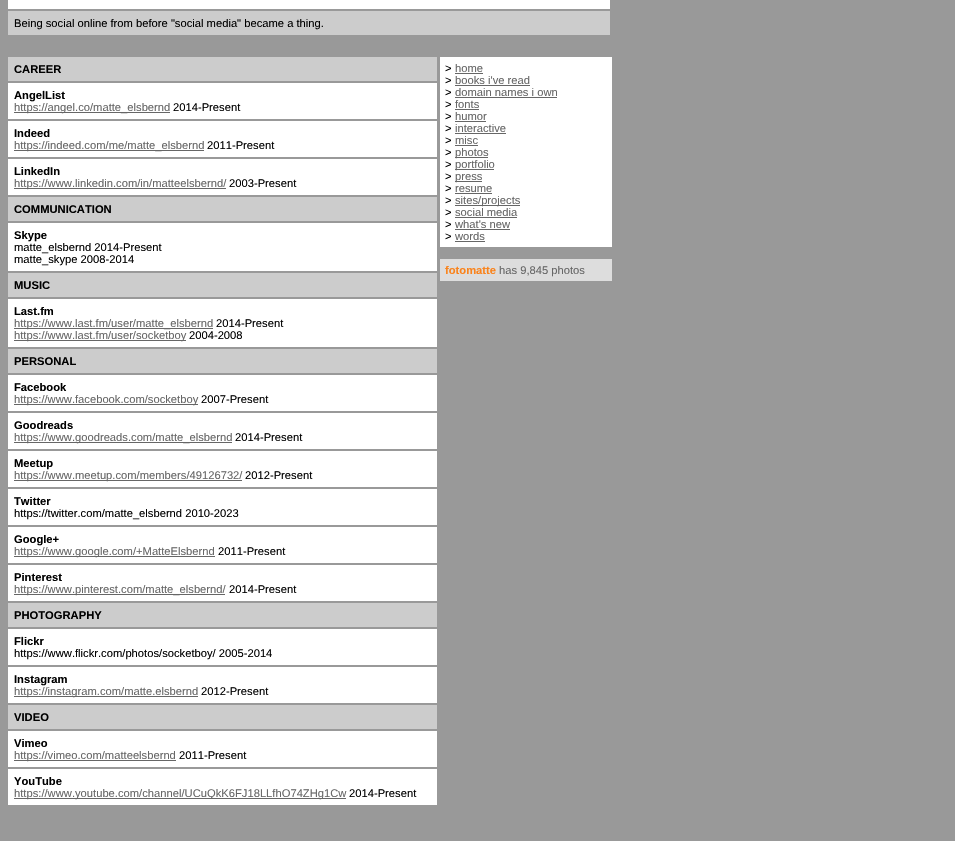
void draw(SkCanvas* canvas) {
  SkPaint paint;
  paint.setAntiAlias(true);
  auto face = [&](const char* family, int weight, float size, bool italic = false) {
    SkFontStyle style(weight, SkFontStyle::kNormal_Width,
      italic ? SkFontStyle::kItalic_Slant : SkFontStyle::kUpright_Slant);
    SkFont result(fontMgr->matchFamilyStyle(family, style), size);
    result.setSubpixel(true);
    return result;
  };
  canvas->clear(0xff999999);
  {
    const struct { float x, y, w, h; SkColor color; } items[] = {
      {8, 0, 602, 9, 0xffffffff},
      {8, 11, 602, 24, 0xffcccccc},
      {8, 57, 429, 24, 0xffcccccc},
      {8, 83, 429, 36, 0xffffffff},
      {14, 112, 156, 1, 0xff666666},
      {8, 121, 429, 36, 0xffffffff},
      {14, 150, 190, 1, 0xff666666},
      {8, 159, 429, 36, 0xffffffff},
      {14, 188, 212, 1, 0xff666666},
      {8, 197, 429, 24, 0xffcccccc},
      {8, 223, 429, 48, 0xffffffff},
      {8, 273, 429, 24, 0xffcccccc},
      {8, 299, 429, 48, 0xffffffff},
      {14, 328, 199, 1, 0xff666666},
      {14, 340, 172, 1, 0xff666666},
      {8, 349, 429, 24, 0xffcccccc},
      {8, 375, 429, 36, 0xffffffff},
      {14, 404, 184, 1, 0xff666666},
      {8, 413, 429, 36, 0xffffffff},
      {14, 442, 218, 1, 0xff666666},
      {8, 451, 429, 36, 0xffffffff},
      {14, 480, 228, 1, 0xff666666},
      {8, 489, 429, 36, 0xffffffff},
      {8, 527, 429, 36, 0xffffffff},
      {14, 556, 201, 1, 0xff666666},
      {8, 565, 429, 36, 0xffffffff},
      {14, 594, 211, 1, 0xff666666},
      {8, 603, 429, 24, 0xffcccccc},
      {8, 629, 429, 36, 0xffffffff},
      {8, 667, 429, 36, 0xffffffff},
      {14, 696, 184, 1, 0xff666666},
      {8, 705, 429, 24, 0xffcccccc},
      {8, 731, 429, 36, 0xffffffff},
      {14, 760, 162, 1, 0xff666666},
      {8, 769, 429, 36, 0xffffffff},
      {14, 798, 332, 1, 0xff666666},
      {440, 57, 172, 190, 0xffffffff},
      {455, 73, 28, 1, 0xff666666},
      {455, 85, 75, 1, 0xff666666},
      {455, 97, 102, 1, 0xff666666},
      {455, 109, 24, 1, 0xff666666},
      {455, 121, 31, 1, 0xff666666},
      {455, 133, 51, 1, 0xff666666},
      {455, 145, 23, 1, 0xff666666},
      {455, 157, 33, 1, 0xff666666},
      {455, 169, 39, 1, 0xff666666},
      {455, 181, 27, 1, 0xff666666},
      {455, 193, 37, 1, 0xff666666},
      {455, 205, 65, 1, 0xff666666},
      {455, 217, 62, 1, 0xff666666},
      {455, 229, 55, 1, 0xff666666},
      {455, 241, 30, 1, 0xff666666},
      {440, 259, 172, 22, 0xffdddddd},
    };
    for (auto [x, y, w, h, color] : items) {
      paint.setColor(color);
      canvas->drawRect(SkRect::MakeXYWH(x, y, w, h), paint);
    }
  }
  auto f0 = face("Liberation Sans", 400, 11.2f);
  paint.setColor(0xff000000);
  canvas->drawString("Being social online from before \"social media\" became a thing.", 14, 27, f0, paint);
  auto f1 = face("Liberation Sans", 700, 11.2f);
  canvas->drawString("CAREER", 14, 73, f1, paint);
  canvas->drawString("AngelList", 14, 99, f1, paint);
  paint.setColor(0xff666666);
  canvas->drawString("https://angel.co/matte_elsbernd", 14, 111, f0, paint);
  paint.setColor(0xff000000);
  canvas->drawString("2014-Present", 173, 111, f0, paint);
  canvas->drawString("Indeed", 14, 137, f1, paint);
  paint.setColor(0xff666666);
  canvas->drawString("https://indeed.com/me/matte_elsbernd", 14, 149, f0, paint);
  paint.setColor(0xff000000);
  canvas->drawString("2011-Present", 207, 149, f0, paint);
  canvas->drawString("LinkedIn", 14, 175, f1, paint);
  paint.setColor(0xff666666);
  canvas->drawString("https://www.linkedin.com/in/matteelsbernd/", 14, 187, f0, paint);
  paint.setColor(0xff000000);
  canvas->drawString("2003-Present", 229, 187, f0, paint);
  canvas->drawString("COMMUNICATION", 14, 213, f1, paint);
  canvas->drawString("Skype", 14, 239, f1, paint);
  canvas->drawString("matte_elsbernd 2014-Present", 14, 251, f0, paint);
  canvas->drawString("matte_skype 2008-2014", 14, 263, f0, paint);
  canvas->drawString("MUSIC", 14, 289, f1, paint);
  canvas->drawString("Last.fm", 14, 315, f1, paint);
  paint.setColor(0xff666666);
  canvas->drawString("https://www.last.fm/user/matte_elsbernd", 14, 327, f0, paint);
  paint.setColor(0xff000000);
  canvas->drawString("2014-Present", 216, 327, f0, paint);
  paint.setColor(0xff666666);
  canvas->drawString("https://www.last.fm/user/socketboy", 14, 339, f0, paint);
  paint.setColor(0xff000000);
  canvas->drawString("2004-2008", 189, 339, f0, paint);
  canvas->drawString("PERSONAL", 14, 365, f1, paint);
  canvas->drawString("Facebook", 14, 391, f1, paint);
  paint.setColor(0xff666666);
  canvas->drawString("https://www.facebook.com/socketboy", 14, 403, f0, paint);
  paint.setColor(0xff000000);
  canvas->drawString("2007-Present", 201, 403, f0, paint);
  canvas->drawString("Goodreads", 14, 429, f1, paint);
  paint.setColor(0xff666666);
  canvas->drawString("https://www.goodreads.com/matte_elsbernd", 14, 441, f0, paint);
  paint.setColor(0xff000000);
  canvas->drawString("2014-Present", 235, 441, f0, paint);
  canvas->drawString("Meetup", 14, 467, f1, paint);
  paint.setColor(0xff666666);
  canvas->drawString("https://www.meetup.com/members/49126732/", 14, 479, f0, paint);
  paint.setColor(0xff000000);
  canvas->drawString("2012-Present", 245, 479, f0, paint);
  canvas->drawString("Twitter", 14, 505, f1, paint);
  canvas->drawString("https://twitter.com/matte_elsbernd 2010-2023", 14, 517, f0, paint);
  canvas->drawString("Google+", 14, 543, f1, paint);
  paint.setColor(0xff666666);
  canvas->drawString("https://www.google.com/+MatteElsbernd", 14, 555, f0, paint);
  paint.setColor(0xff000000);
  canvas->drawString("2011-Present", 218, 555, f0, paint);
  canvas->drawString("Pinterest", 14, 581, f1, paint);
  paint.setColor(0xff666666);
  canvas->drawString("https://www.pinterest.com/matte_elsbernd/", 14, 593, f0, paint);
  paint.setColor(0xff000000);
  canvas->drawString("2014-Present", 229, 593, f0, paint);
  canvas->drawString("PHOTOGRAPHY", 14, 619, f1, paint);
  canvas->drawString("Flickr", 14, 645, f1, paint);
  canvas->drawString("https://www.flickr.com/photos/socketboy/ 2005-2014", 14, 657, f0, paint);
  canvas->drawString("Instagram", 14, 683, f1, paint);
  paint.setColor(0xff666666);
  canvas->drawString("https://instagram.com/matte.elsbernd", 14, 695, f0, paint);
  paint.setColor(0xff000000);
  canvas->drawString("2012-Present", 201, 695, f0, paint);
  canvas->drawString("VIDEO", 14, 721, f1, paint);
  canvas->drawString("Vimeo", 14, 747, f1, paint);
  paint.setColor(0xff666666);
  canvas->drawString("https://vimeo.com/matteelsbernd", 14, 759, f0, paint);
  paint.setColor(0xff000000);
  canvas->drawString("2011-Present", 179, 759, f0, paint);
  canvas->drawString("YouTube", 14, 785, f1, paint);
  paint.setColor(0xff666666);
  canvas->drawString("https://www.youtube.com/channel/UCuQkK6FJ18LLfhO74ZHg1Cw", 14, 797, f0, paint);
  paint.setColor(0xff000000);
  canvas->drawString("2014-Present", 349, 797, f0, paint);
  canvas->drawString(">", 445, 72, f0, paint);
  paint.setColor(0xff666666);
  canvas->drawString("home", 455, 72, f0, paint);
  paint.setColor(0xff000000);
  canvas->drawString(">", 445, 84, f0, paint);
  paint.setColor(0xff666666);
  canvas->drawString("books i've read", 455, 84, f0, paint);
  paint.setColor(0xff000000);
  canvas->drawString(">", 445, 96, f0, paint);
  paint.setColor(0xff666666);
  canvas->drawString("domain names i own", 455, 96, f0, paint);
  paint.setColor(0xff000000);
  canvas->drawString(">", 445, 108, f0, paint);
  paint.setColor(0xff666666);
  canvas->drawString("fonts", 455, 108, f0, paint);
  paint.setColor(0xff000000);
  canvas->drawString(">", 445, 120, f0, paint);
  paint.setColor(0xff666666);
  canvas->drawString("humor", 455, 120, f0, paint);
  paint.setColor(0xff000000);
  canvas->drawString(">", 445, 132, f0, paint);
  paint.setColor(0xff666666);
  canvas->drawString("interactive", 455, 132, f0, paint);
  paint.setColor(0xff000000);
  canvas->drawString(">", 445, 144, f0, paint);
  paint.setColor(0xff666666);
  canvas->drawString("misc", 455, 144, f0, paint);
  paint.setColor(0xff000000);
  canvas->drawString(">", 445, 156, f0, paint);
  paint.setColor(0xff666666);
  canvas->drawString("photos", 455, 156, f0, paint);
  paint.setColor(0xff000000);
  canvas->drawString(">", 445, 168, f0, paint);
  paint.setColor(0xff666666);
  canvas->drawString("portfolio", 455, 168, f0, paint);
  paint.setColor(0xff000000);
  canvas->drawString(">", 445, 180, f0, paint);
  paint.setColor(0xff666666);
  canvas->drawString("press", 455, 180, f0, paint);
  paint.setColor(0xff000000);
  canvas->drawString(">", 445, 192, f0, paint);
  paint.setColor(0xff666666);
  canvas->drawString("resume", 455, 192, f0, paint);
  paint.setColor(0xff000000);
  canvas->drawString(">", 445, 204, f0, paint);
  paint.setColor(0xff666666);
  canvas->drawString("sites/projects", 455, 204, f0, paint);
  paint.setColor(0xff000000);
  canvas->drawString(">", 445, 216, f0, paint);
  paint.setColor(0xff666666);
  canvas->drawString("social media", 455, 216, f0, paint);
  paint.setColor(0xff000000);
  canvas->drawString(">", 445, 228, f0, paint);
  paint.setColor(0xff666666);
  canvas->drawString("what's new", 455, 228, f0, paint);
  paint.setColor(0xff000000);
  canvas->drawString(">", 445, 240, f0, paint);
  paint.setColor(0xff666666);
  canvas->drawString("words", 455, 240, f0, paint);
  paint.setColor(0xfffa831b);
  canvas->drawString("fotomatte", 445, 274, f1, paint);
  paint.setColor(0xff666666);
  canvas->drawString("has 9,845 photos", 499, 274, f0, paint);
}
